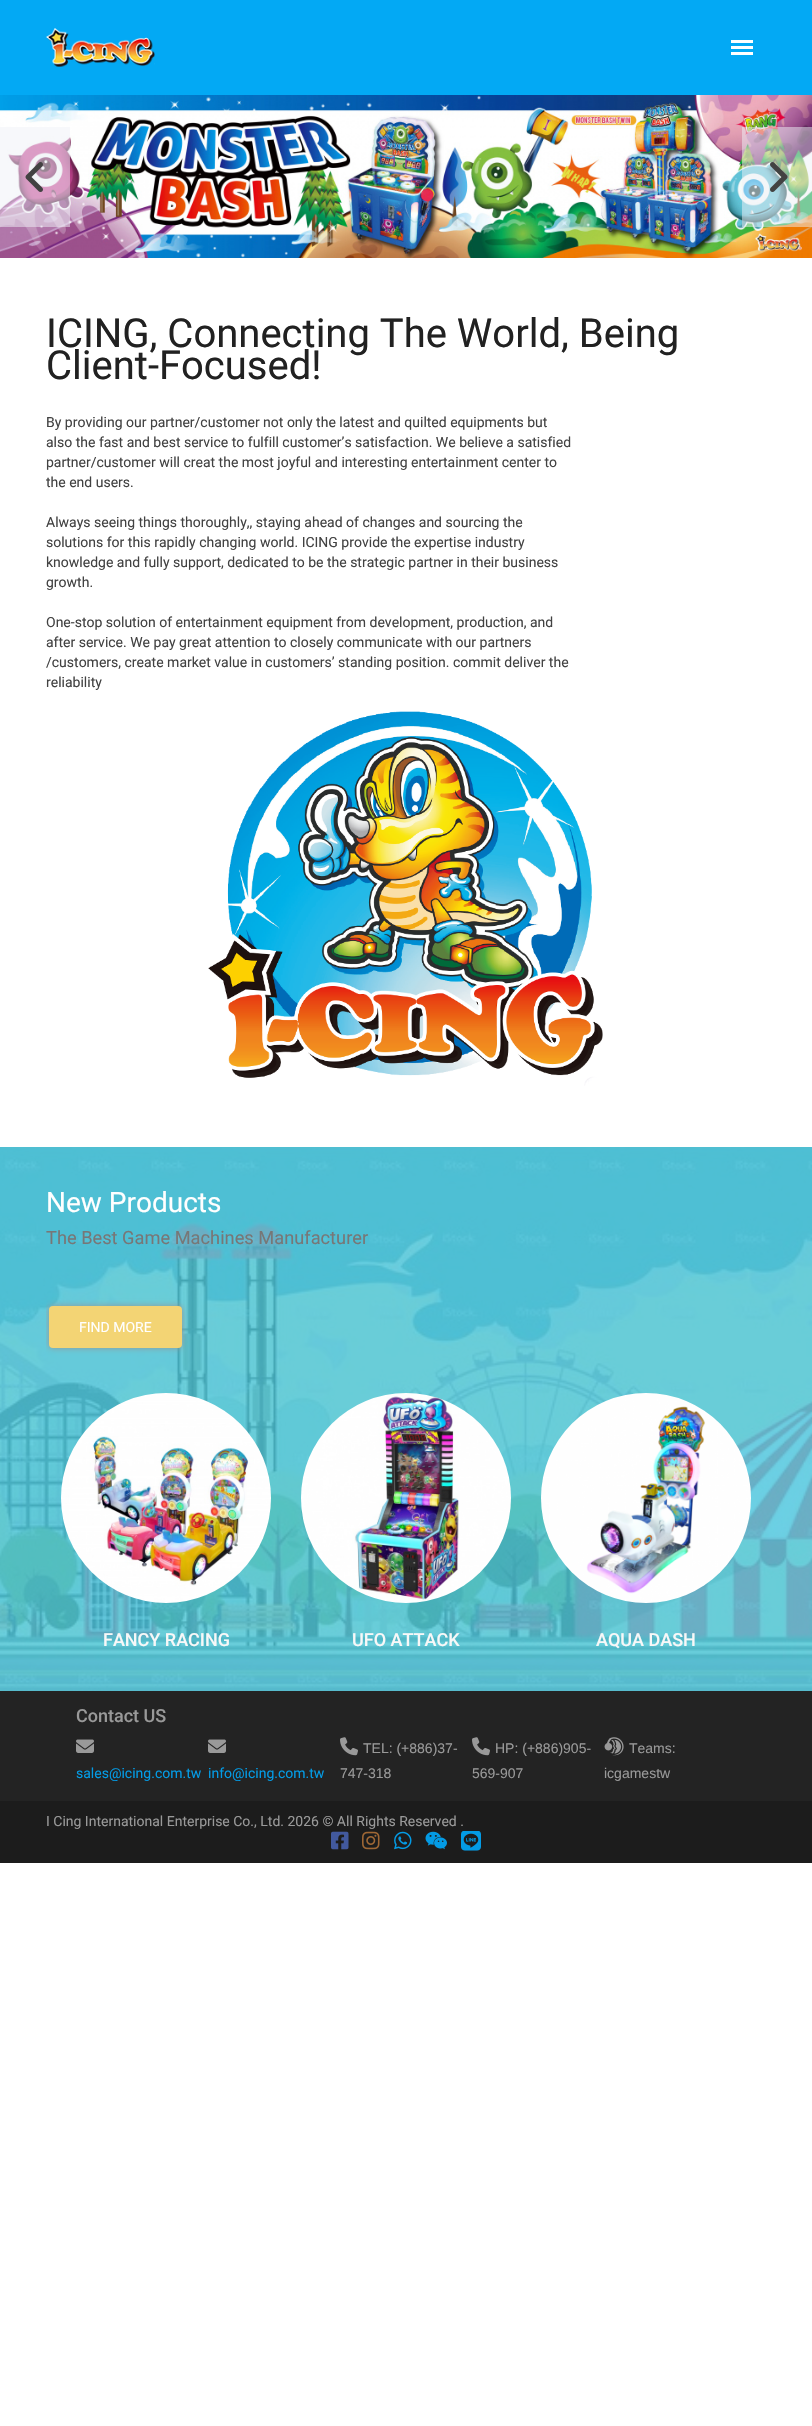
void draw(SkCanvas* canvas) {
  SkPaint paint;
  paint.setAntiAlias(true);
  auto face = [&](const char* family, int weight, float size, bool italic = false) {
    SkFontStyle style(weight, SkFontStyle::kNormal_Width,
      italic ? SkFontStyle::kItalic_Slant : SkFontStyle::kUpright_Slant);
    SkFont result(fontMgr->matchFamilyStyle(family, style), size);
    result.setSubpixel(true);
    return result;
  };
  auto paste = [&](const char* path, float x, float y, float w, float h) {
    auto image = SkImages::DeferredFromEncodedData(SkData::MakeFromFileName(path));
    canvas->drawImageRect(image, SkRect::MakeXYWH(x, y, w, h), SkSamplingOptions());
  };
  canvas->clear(0xffffffff);
  paint.setColor(0xff03a9f4);
  canvas->drawRect(SkRect::MakeXYWH(0, 0, 812, 95), paint);
  paste("img/1.png", 46, 28, 109, 39);
  {
    const struct { float x, y, w, h; SkColor color; } items[] = {
      {731, 40, 22, 3, 0xffffffff},
      {731, 46, 22, 3, 0xffffffff},
      {731, 52, 22, 3, 0xffffffff},
    };
    for (auto [x, y, w, h, color] : items) {
      paint.setColor(color);
      canvas->drawRect(SkRect::MakeXYWH(x, y, w, h), paint);
    }
  }
  paste("img/2.png", 0, 95, 812, 163);
  paint.setColor(0x80f0f1f8);
  canvas->drawRect(SkRect::MakeXYWH(0, 127, 70, 100), paint);
  paste("img/3.png", 25, 162, 18, 30);
  canvas->drawRect(SkRect::MakeXYWH(742, 127, 70, 100), paint);
  paste("img/4.png", 770, 162, 18, 30);
  paste("img/5.png", 208, 711, 395, 375);
  paste("img/6.png", 0, 1147, 812, 544);
  canvas->save();
  canvas->clipRect(SkRect::MakeXYWH(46, 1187, 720, 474));
  paint.setColor(0xff969696);
  paint.setMaskFilter(SkMaskFilter::MakeBlur(kNormal_SkBlurStyle, 3));
  canvas->drawRoundRect(SkRect::MakeXYWH(49, 1306, 133, 42), 4, 4, paint);
  paint.setMaskFilter(nullptr);
  canvas->restore();
  paint.setColor(0xfff3d474);
  canvas->drawRoundRect(SkRect::MakeXYWH(49, 1306, 133, 42), 4, 4, paint);
  paste("img/7.png", 61, 1393, 210, 210);
  paste("img/8.png", 301, 1393, 210, 210);
  paste("img/9.png", 541, 1393, 210, 210);
  paint.setColor(0xff232323);
  canvas->drawRect(SkRect::MakeXYWH(0, 1691, 812, 110), paint);
  paste("img/10.png", 76, 1739, 18, 14);
  paste("img/10.png", 208, 1739, 18, 14);
  paste("img/11.png", 340, 1737, 18, 19);
  paste("img/11.png", 472, 1737, 18, 19);
  paste("img/12.png", 604, 1737, 20, 19);
  paint.setColor(0xff1c1c1c);
  canvas->drawRect(SkRect::MakeXYWH(0, 1801, 812, 62), paint);
  paste("img/13.png", 331, 1831, 18, 19);
  paste("img/14.png", 362, 1831, 18, 19);
  paste("img/15.png", 394, 1831, 18, 19);
  paste("img/16.png", 425, 1831, 22, 19);
  paste("img/17.png", 461, 1831, 20, 20);
  auto f0 = face("Roboto", 400, 40);
  paint.setColor(0xff212121);
  canvas->drawString("ICING, Connecting The World, Being", 46, 347, f0, paint);
  canvas->drawString("Client-Focused!", 46, 379, f0, paint);
  auto f1 = face("Roboto", 400, 14);
  paint.setColor(0xff424242);
  {
    const struct { const char* s; float x, y; } items[] = {
      {"By providing our partner/customer not only the latest and quilted equipments but", 46, 427},
      {"also the fast and best service to fulfill customer’s satisfaction. We believe a satisfied", 46, 447},
      {"partner/customer will creat the most joyful and interesting entertainment center to", 46, 467},
      {"the end users.", 46, 487},
      {"Always seeing things thoroughly,, staying ahead of changes and sourcing the", 46, 527},
      {"solutions for this rapidly changing world. ICING provide the expertise industry", 46, 547},
      {"knowledge and fully support, dedicated to be the strategic partner in their business", 46, 567},
      {"growth.", 46, 587},
      {"One-stop solution of entertainment equipment from development, production, and", 46, 627},
      {"after service. We pay great attention to closely communicate with our partners", 46, 647},
      {"/customers, create market value in customers’ standing position. commit deliver the", 46, 667},
      {"reliability", 46, 687},
    };
    for (auto [s, x, y] : items) {
      canvas->drawString(s, x, y, f1, paint);
    }
  }
  auto f2 = face("Roboto", 400, 28);
  paint.setColor(0xffffffff);
  canvas->drawString("New Products", 46, 1212, f2, paint);
  auto f3 = face("Roboto", 400, 18.25f);
  paint.setColor(0xff777777);
  canvas->drawString("The Best Game Machines Manufacturer", 46, 1244, f3, paint);
  paint.setColor(0xffffffff);
  canvas->drawString("FIND MORE", 79, 1332, f1, paint);
  auto f4 = face("Roboto", 500, 18);
  paint.setColor(0xfff8f8f8);
  {
    const struct { const char* s; float x, y; } items[] = {
      {"FANCY RACING", 103, 1646},
      {"UFO ATTACK", 352, 1646},
      {"AQUA DASH", 596, 1646},
    };
    for (auto [s, x, y] : items) {
      canvas->drawString(s, x, y, f4, paint);
    }
  }
  paint.setColor(0xff999999);
  canvas->drawString("Contact US", 76, 1722, f4, paint);
  paint.setColor(0xff039be5);
  canvas->drawString("sales@icing.com.tw", 76, 1778, f1, paint);
  canvas->drawString("info@icing.com.tw", 208, 1778, f1, paint);
  auto f5 = face("Liberation Sans", 400, 14);
  paint.setColor(0xff999999);
  {
    const struct { const char* s; float x, y; } items[] = {
      {"TEL: (+886)37-", 363, 1753},
      {"747-318", 340, 1778},
      {"HP: (+886)905-", 495, 1753},
      {"569-907", 472, 1778},
      {"Teams:", 629, 1753},
      {"icgamestw", 604, 1778},
    };
    for (auto [s, x, y] : items) {
      canvas->drawString(s, x, y, f5, paint);
    }
  }
  canvas->drawString("I Cing International Enterprise Co., Ltd. 2026 © All Rights Reserved .", 46, 1826, f1, paint);
}
